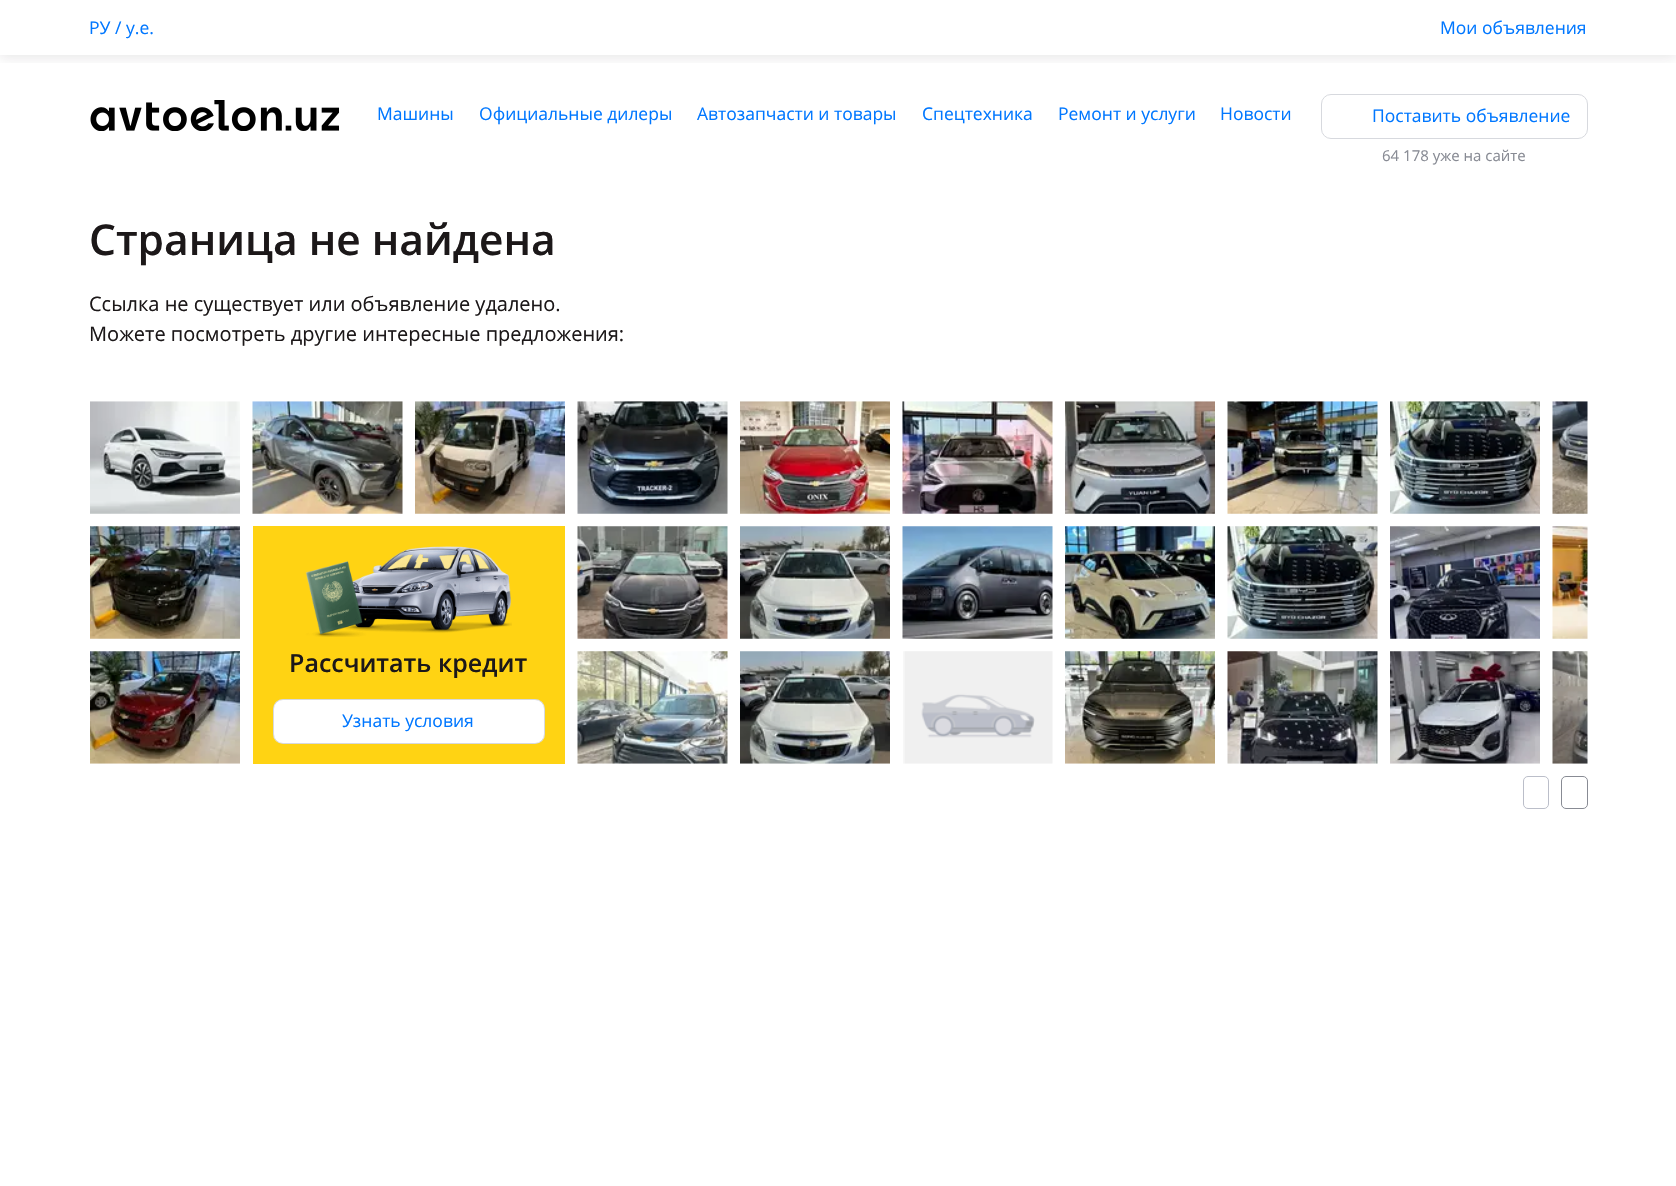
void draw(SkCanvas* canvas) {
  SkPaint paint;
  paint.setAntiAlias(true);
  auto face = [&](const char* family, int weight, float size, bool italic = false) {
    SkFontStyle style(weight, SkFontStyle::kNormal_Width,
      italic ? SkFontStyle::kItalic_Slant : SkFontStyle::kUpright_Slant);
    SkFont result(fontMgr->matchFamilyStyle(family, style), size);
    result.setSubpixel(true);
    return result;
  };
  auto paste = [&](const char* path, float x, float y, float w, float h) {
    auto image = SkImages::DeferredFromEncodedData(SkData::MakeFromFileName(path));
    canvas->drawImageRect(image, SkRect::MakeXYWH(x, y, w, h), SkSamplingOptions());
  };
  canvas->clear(0xffffffff);
  canvas->save();
  canvas->clipRect(SkRect::MakeXYWH(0, 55, 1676, 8));
  paint.setColor(0x1a1c1819);
  paint.setMaskFilter(SkMaskFilter::MakeBlur(kNormal_SkBlurStyle, 6));
  canvas->drawRect(SkRect::MakeXYWH(0, 3, 1676, 55), paint);
  paint.setMaskFilter(nullptr);
  canvas->restore();
  paste("img/1.png", 90, 100, 250, 31);
  paint.setStroke(true);
  paint.setStrokeWidth(1);
  paint.setColor(0xffd7d9de);
  canvas->drawRoundRect(SkRect::MakeXYWH(1321.5f, 94.5f, 266, 44), 9.5f, 9.5f, paint);
  paste("img/2.png", 90, 401, 150, 113);
  paste("img/3.png", 252, 401, 151, 113);
  paste("img/4.png", 415, 401, 150, 113);
  paste("img/5.png", 577, 401, 151, 113);
  paste("img/6.png", 740, 401, 150, 113);
  paste("img/7.png", 902, 401, 151, 113);
  paste("img/8.png", 1065, 401, 150, 113);
  paste("img/9.png", 1227, 401, 151, 113);
  paste("img/10.png", 1390, 401, 150, 113);
  paste("img/11.png", 1552, 401, 36, 113);
  paste("img/12.png", 90, 526, 150, 113);
  paste("img/13.png", 577, 526, 151, 113);
  paste("img/14.png", 740, 526, 150, 113);
  paste("img/15.png", 902, 526, 151, 113);
  paste("img/16.png", 1065, 526, 150, 113);
  paste("img/17.png", 1227, 526, 151, 113);
  paste("img/18.png", 1390, 526, 150, 113);
  paste("img/19.png", 1552, 526, 36, 113);
  paste("img/20.png", 90, 651, 150, 113);
  paint.setStroke(false);
  paint.setColor(0xffffd313);
  canvas->drawRect(SkRect::MakeXYWH(253, 526, 312, 238), paint);
  paste("img/21.png", 305, 546, 207, 91);
  paint.setColor(0xffffffff);
  canvas->drawRoundRect(SkRect::MakeXYWH(273, 699, 272, 45), 10, 10, paint);
  paint.setStroke(true);
  paint.setColor(0x3b505b71);
  canvas->drawRoundRect(SkRect::MakeXYWH(273.5f, 699.5f, 271, 44), 9.5f, 9.5f, paint);
  paste("img/22.png", 577, 651, 151, 113);
  paste("img/23.png", 740, 651, 150, 113);
  paste("img/24.png", 903, 651, 150, 113);
  paste("img/25.png", 1065, 651, 150, 113);
  paste("img/26.png", 1227, 651, 151, 113);
  paste("img/27.png", 1390, 651, 150, 113);
  paste("img/28.png", 1552, 651, 36, 113);
  paint.setColor(0xffbbbec9);
  canvas->drawRoundRect(SkRect::MakeXYWH(1523.5f, 776.5f, 25, 32), 4.5f, 4.5f, paint);
  paint.setColor(0xff888b94);
  canvas->drawRoundRect(SkRect::MakeXYWH(1561.5f, 776.5f, 26, 32), 4.5f, 4.5f, paint);
  auto f0 = face("Open Sans", 400, 17.5f);
  paint.setStroke(false);
  paint.setColor(0xff0077ff);
  {
    const struct { const char* s; float x, y; } items[] = {
      {"РУ / у.е.", 89, 34},
      {"Мои объявления", 1440, 34},
      {"Машины", 377, 120},
      {"Официальные дилеры", 479, 120},
      {"Автозапчасти и товары", 697, 120},
      {"Спецтехника", 922, 120},
      {"Ремонт и услуги", 1058, 120},
      {"Новости", 1220, 120},
      {"Поставить объявление", 1372, 122},
    };
    for (auto [s, x, y] : items) {
      canvas->drawString(s, x, y, f0, paint);
    }
  }
  auto f1 = face("Open Sans", 400, 15);
  paint.setColor(0xff888b94);
  canvas->drawString("64 178 уже на сайте", 1382, 161, f1, paint);
  auto f2 = face("Open Sans", 600, 42.5f);
  paint.setColor(0xff1c1819);
  canvas->drawString("Страница не найдена", 89, 255, f2, paint);
  auto f3 = face("Open Sans", 400, 20);
  canvas->drawString("Cсылка не существует или объявление удалено.", 89, 311, f3, paint);
  canvas->drawString("Можете посмотреть другие интересные предложения:", 89, 341, f3, paint);
  auto f4 = face("Open Sans", 600, 25);
  canvas->drawString("Рассчитать кредит", 289, 672, f4, paint);
  paint.setColor(0xff0077ff);
  canvas->drawString("Узнать условия", 342, 727, f0, paint);
}
